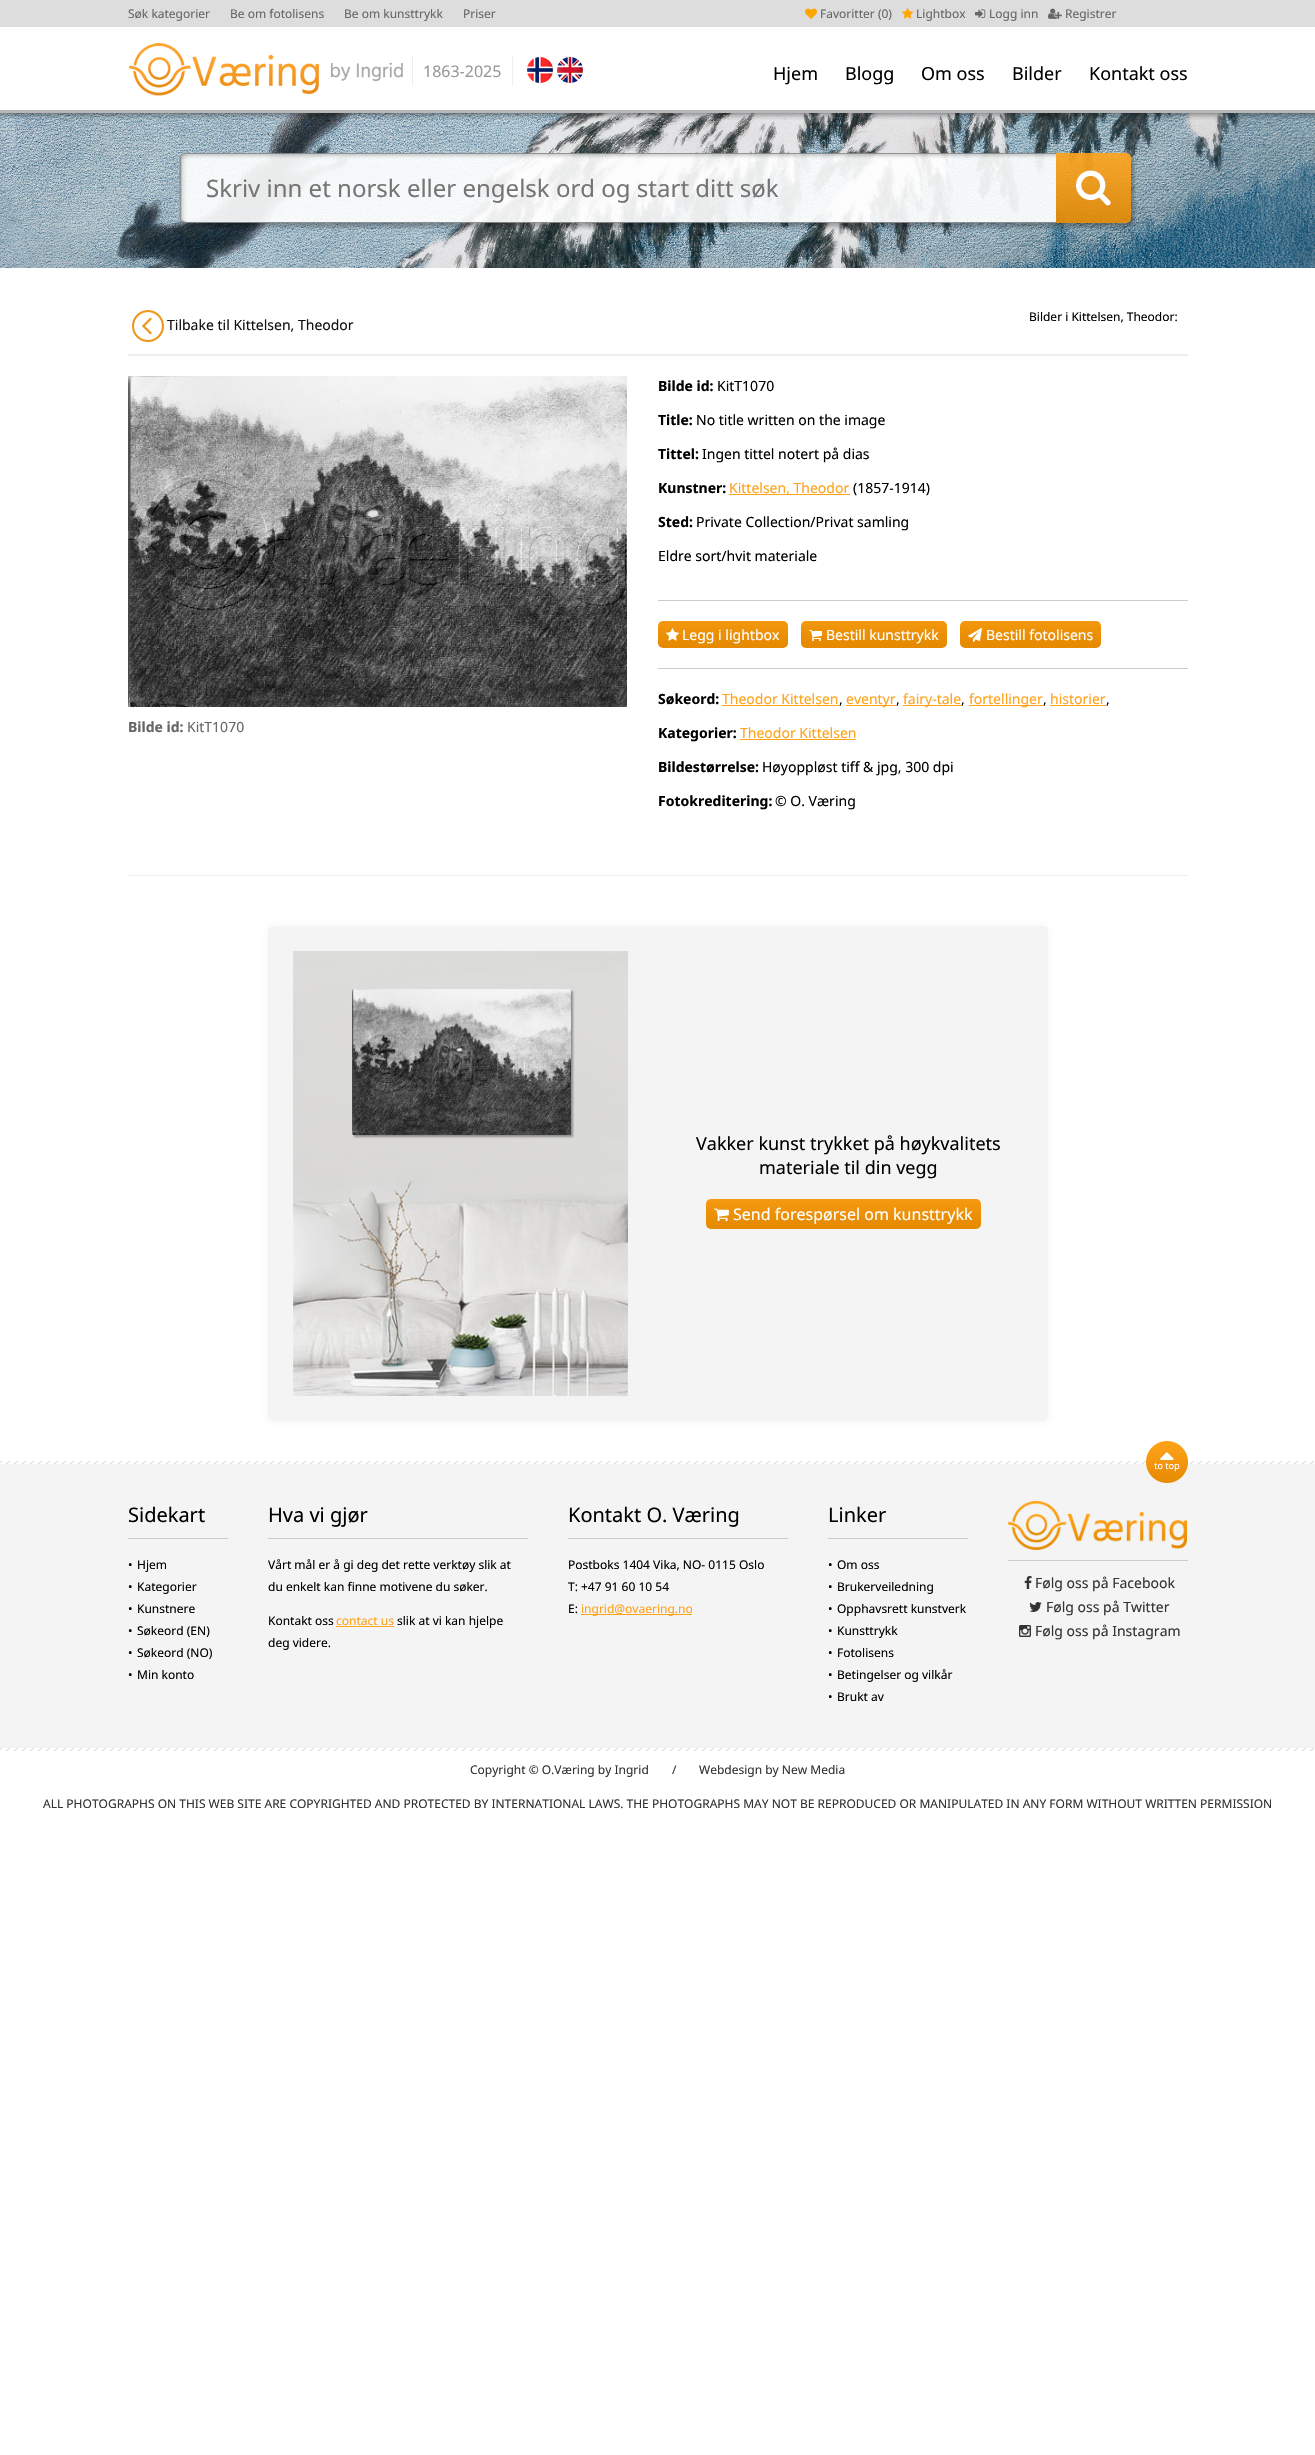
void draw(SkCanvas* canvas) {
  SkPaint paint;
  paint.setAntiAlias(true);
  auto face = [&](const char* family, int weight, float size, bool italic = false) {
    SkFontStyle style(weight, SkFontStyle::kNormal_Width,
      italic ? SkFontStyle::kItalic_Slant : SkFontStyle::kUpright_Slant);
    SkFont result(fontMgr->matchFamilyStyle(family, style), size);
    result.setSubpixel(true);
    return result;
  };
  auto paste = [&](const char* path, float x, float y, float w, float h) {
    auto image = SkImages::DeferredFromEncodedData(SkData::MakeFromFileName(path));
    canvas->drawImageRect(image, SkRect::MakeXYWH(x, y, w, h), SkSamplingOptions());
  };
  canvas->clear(0xffffffff);
  paint.setColor(0xffb7b7b7);
  canvas->drawRect(SkRect::MakeXYWH(0, 110, 1315, 3), paint);
  paint.setColor(0xffdddddd);
  canvas->drawRect(SkRect::MakeXYWH(0, 0, 1315, 27), paint);
  paste("img/1.png", 805, 8, 12, 11);
  paste("img/2.png", 902, 8, 12, 11);
  paste("img/3.png", 975, 9, 11, 9);
  paste("img/4.png", 1048, 8, 14, 11);
  paste("img/5.png", 129, 43, 274, 53);
  paint.setColor(0xffeeeeee);
  canvas->drawRect(SkRect::MakeXYWH(512, 56, 1, 30), paint);
  canvas->drawRect(SkRect::MakeXYWH(412, 56, 1, 30), paint);
  paste("img/6.png", 527, 57, 26, 26);
  paste("img/7.png", 557, 57, 26, 26);
  paste("img/8.png", 0, 113, 1315, 155);
  paste("img/9.png", 0, 113, 1315, 7);
  paste("img/10.png", 179, 153, 877, 77);
  paste("img/11.png", 1056, 153, 81, 77);
  canvas->drawRect(SkRect::MakeXYWH(128, 354, 1060, 2), paint);
  paste("img/12.png", 132, 310, 32, 32);
  paste("img/13.png", 128, 376, 499, 331);
  paint.setColor(0xffffa31a);
  canvas->drawRect(SkRect::MakeXYWH(729, 494, 121, 1), paint);
  paint.setColor(0xffcccccc);
  canvas->drawRect(SkRect::MakeXYWH(658, 600, 530, 1), paint);
  paste("img/14.png", 658, 621, 130, 27);
  paste("img/15.png", 666, 628, 13, 13);
  paste("img/16.png", 801, 621, 146, 27);
  paste("img/17.png", 809, 630, 13, 11);
  paste("img/18.png", 960, 621, 141, 27);
  paste("img/19.png", 968, 628, 14, 14);
  {
    const struct { float x, y, w, h; SkColor color; } items[] = {
      {658, 668, 530, 1, 0xffcccccc},
      {722, 705, 117, 1, 0xffffa31a},
      {846, 705, 50, 1, 0xffffa31a},
      {903, 705, 58, 1, 0xffffa31a},
      {969, 705, 74, 1, 0xffffa31a},
      {1050, 705, 56, 1, 0xffffa31a},
      {740, 739, 116, 1, 0xffffa31a},
      {128, 875, 1060, 1, 0xffeeeeee},
    };
    for (auto [x, y, w, h, color] : items) {
      paint.setColor(color);
      canvas->drawRect(SkRect::MakeXYWH(x, y, w, h), paint);
    }
  }
  paint.setColor(0x4dd7d7d7);
  paint.setMaskFilter(SkMaskFilter::MakeBlur(kNormal_SkBlurStyle, 4.5f));
  canvas->drawRoundRect(SkRect::MakeXYWH(268, 926, 780, 495), 5, 5, paint);
  paint.setMaskFilter(nullptr);
  paint.setColor(0xfff4f4f4);
  canvas->drawRoundRect(SkRect::MakeXYWH(268, 926, 780, 495), 5, 5, paint);
  paste("img/20.png", 293, 951, 335, 445);
  paint.setColor(0x75333333);
  paint.setMaskFilter(SkMaskFilter::MakeBlur(kNormal_SkBlurStyle, 1));
  canvas->drawRect(SkRect::MakeXYWH(354, 991, 219, 146), paint);
  paint.setMaskFilter(nullptr);
  paste("img/21.png", 352, 989, 219, 146);
  paste("img/22.png", 706, 1199, 275, 30);
  paste("img/23.png", 714, 1208, 15, 14);
  paint.setColor(0xfff4f4f4);
  canvas->drawRect(SkRect::MakeXYWH(0, 1464, 1315, 284), paint);
  paste("img/24.png", 0, 1461, 1315, 3);
  paste("img/25.png", 1146, 1441, 42, 42);
  {
    const struct { float x, y, w, h; SkColor color; } items[] = {
      {128, 1538, 100, 1, 0xffcccccc},
      {268, 1538, 260, 1, 0xffcccccc},
      {336, 1626, 58, 1, 0xffffa31a},
      {568, 1538, 220, 1, 0xffcccccc},
      {581, 1614, 111, 1, 0xffffa31a},
      {828, 1538, 140, 1, 0xffcccccc},
    };
    for (auto [x, y, w, h, color] : items) {
      paint.setColor(color);
      canvas->drawRect(SkRect::MakeXYWH(x, y, w, h), paint);
    }
  }
  paste("img/26.png", 1008, 1501, 179, 49);
  canvas->drawRect(SkRect::MakeXYWH(1008, 1560, 180, 1), paint);
  paste("img/27.png", 1024, 1576, 8, 13);
  paste("img/28.png", 1029, 1602, 13, 10);
  paste("img/29.png", 1019, 1625, 12, 12);
  paste("img/30.png", 0, 1748, 1314, 3);
  auto f0 = face("Noto Sans", 400, 12);
  paint.setColor(0xff666666);
  {
    const struct { const char* s; float x, y; } items[] = {
      {"Søk kategorier", 128, 18},
      {"Be om fotolisens", 230, 18},
      {"Be om kunsttrykk", 344, 18},
      {"Priser", 463, 18},
      {"Favoritter (0)", 820, 18},
      {"Lightbox", 916, 18},
      {"Logg inn", 989, 18},
      {"Registrer", 1065, 18},
    };
    for (auto [s, x, y] : items) {
      canvas->drawString(s, x, y, f0, paint);
    }
  }
  auto f1 = face("Noto Sans", 400, 16);
  paint.setColor(0xff999999);
  canvas->drawString("1863-2025", 423, 77, f1, paint);
  auto f2 = face("Noto Sans", 400, 18);
  paint.setColor(0xff000000);
  {
    const struct { const char* s; float x, y; } items[] = {
      {"Hjem", 773, 80},
      {"Blogg", 845, 80},
      {"Om oss", 921, 80},
      {"Bilder", 1012, 80},
      {"Kontakt oss", 1089, 80},
    };
    for (auto [s, x, y] : items) {
      canvas->drawString(s, x, y, f2, paint);
    }
  }
  auto f3 = face("Noto Sans", 400, 24);
  paint.setColor(0xff757575);
  canvas->drawString("Skriv inn et norsk eller engelsk ord og start ditt søk", 206, 197, f3, paint);
  paint.setColor(0xff000000);
  canvas->drawString("Bilder i Kittelsen, Theodor:", 1029, 321, f0, paint);
  auto f4 = face("Noto Sans", 400, 14);
  paint.setColor(0xff111111);
  canvas->drawString("Tilbake til Kittelsen, Theodor", 167, 330, f4, paint);
  auto f5 = face("Noto Sans", 700, 14);
  paint.setColor(0xff666666);
  canvas->drawString("Bilde id:", 128, 732, f5, paint);
  canvas->drawString("KitT1070", 187, 732, f4, paint);
  paint.setColor(0xff000000);
  canvas->drawString("Bilde id:", 658, 391, f5, paint);
  canvas->drawString("KitT1070", 717, 391, f4, paint);
  canvas->drawString("Title:", 658, 425, f5, paint);
  canvas->drawString("No title written on the image", 696, 425, f4, paint);
  canvas->drawString("Tittel:", 658, 459, f5, paint);
  canvas->drawString("Ingen tittel notert på dias", 702, 459, f4, paint);
  canvas->drawString("Kunstner:", 658, 493, f5, paint);
  paint.setColor(0xffffa31a);
  canvas->drawString("Kittelsen, Theodor", 729, 493, f4, paint);
  paint.setColor(0xff000000);
  canvas->drawString("(1857-1914)", 853, 493, f4, paint);
  canvas->drawString("Sted:", 658, 527, f5, paint);
  canvas->drawString("Private Collection/Privat samling", 696, 527, f4, paint);
  canvas->drawString("Eldre sort/hvit materiale", 658, 561, f4, paint);
  paint.setColor(0xffffffff);
  {
    const struct { const char* s; float x, y; } items[] = {
      {"Legg i lightbox", 682, 640},
      {"Bestill kunsttrykk", 826, 640},
      {"Bestill fotolisens", 986, 640},
    };
    for (auto [s, x, y] : items) {
      canvas->drawString(s, x, y, f4, paint);
    }
  }
  paint.setColor(0xff000000);
  canvas->drawString("Søkeord:", 658, 704, f5, paint);
  paint.setColor(0xffffa31a);
  canvas->drawString("Theodor Kittelsen", 722, 704, f4, paint);
  paint.setColor(0xff000000);
  canvas->drawString(",", 839, 704, f4, paint);
  paint.setColor(0xffffa31a);
  canvas->drawString("eventyr", 846, 704, f4, paint);
  paint.setColor(0xff000000);
  canvas->drawString(",", 896, 704, f4, paint);
  paint.setColor(0xffffa31a);
  canvas->drawString("fairy-tale", 903, 704, f4, paint);
  paint.setColor(0xff000000);
  canvas->drawString(",", 961, 704, f4, paint);
  paint.setColor(0xffffa31a);
  canvas->drawString("fortellinger", 969, 704, f4, paint);
  paint.setColor(0xff000000);
  canvas->drawString(",", 1043, 704, f4, paint);
  paint.setColor(0xffffa31a);
  canvas->drawString("historier", 1050, 704, f4, paint);
  paint.setColor(0xff000000);
  canvas->drawString(",", 1106, 704, f4, paint);
  canvas->drawString("Kategorier:", 658, 738, f5, paint);
  paint.setColor(0xffffa31a);
  canvas->drawString("Theodor Kittelsen", 740, 738, f4, paint);
  paint.setColor(0xff000000);
  canvas->drawString("Bildestørrelse:", 658, 772, f5, paint);
  canvas->drawString("Høyoppløst tiff & jpg, 300 dpi", 762, 772, f4, paint);
  canvas->drawString("Fotokreditering:", 658, 806, f5, paint);
  canvas->drawString("© O. Væring", 775, 806, f4, paint);
  canvas->drawString("Vakker kunst trykket på høykvalitets", 696, 1150, f2, paint);
  canvas->drawString("materiale til din vegg", 759, 1174, f2, paint);
  paint.setColor(0xffffffff);
  canvas->drawString("Send forespørsel om kunsttrykk", 733, 1220, f1, paint);
  auto f6 = face("Noto Sans", 400, 20);
  paint.setColor(0xff000000);
  canvas->drawString("Sidekart", 128, 1522, f6, paint);
  {
    const struct { const char* s; float x, y; } items[] = {
      {"•", 128, 1569},
      {"Hjem", 137, 1569},
      {"•", 128, 1591},
      {"Kategorier", 137, 1591},
      {"•", 128, 1613},
      {"Kunstnere", 137, 1613},
      {"•", 128, 1635},
      {"Søkeord (EN)", 137, 1635},
      {"•", 128, 1657},
      {"Søkeord (NO)", 137, 1657},
      {"•", 128, 1679},
      {"Min konto", 137, 1679},
    };
    for (auto [s, x, y] : items) {
      canvas->drawString(s, x, y, f0, paint);
    }
  }
  canvas->drawString("Hva vi gjør", 268, 1522, f6, paint);
  {
    const struct { const char* s; float x, y; } items[] = {
      {"Vårt mål er å gi deg det rette verktøy slik at", 268, 1569},
      {"du enkelt kan finne motivene du søker.", 268, 1591},
      {"Kontakt oss", 268, 1625},
    };
    for (auto [s, x, y] : items) {
      canvas->drawString(s, x, y, f0, paint);
    }
  }
  paint.setColor(0xffffa31a);
  canvas->drawString("contact us", 336, 1625, f0, paint);
  paint.setColor(0xff000000);
  canvas->drawString("slik at vi kan hjelpe", 397, 1625, f0, paint);
  canvas->drawString("deg videre.", 268, 1647, f0, paint);
  canvas->drawString("Kontakt O. Væring", 568, 1522, f6, paint);
  {
    const struct { const char* s; float x, y; } items[] = {
      {"Postboks 1404 Vika, NO- 0115 Oslo", 568, 1569},
      {"T: +47 91 60 10 54", 568, 1591},
      {"E:", 568, 1613},
    };
    for (auto [s, x, y] : items) {
      canvas->drawString(s, x, y, f0, paint);
    }
  }
  paint.setColor(0xffffa31a);
  canvas->drawString("ingrid@ovaering.no", 581, 1613, f0, paint);
  paint.setColor(0xff000000);
  canvas->drawString("Linker", 828, 1522, f6, paint);
  {
    const struct { const char* s; float x, y; } items[] = {
      {"•", 828, 1569},
      {"Om oss", 837, 1569},
      {"•", 828, 1591},
      {"Brukerveiledning", 837, 1591},
      {"•", 828, 1613},
      {"Opphavsrett kunstverk", 837, 1613},
      {"•", 828, 1635},
      {"Kunsttrykk", 837, 1635},
      {"•", 828, 1657},
      {"Fotolisens", 837, 1657},
      {"•", 828, 1679},
      {"Betingelser og vilkår", 837, 1679},
      {"•", 828, 1701},
      {"Brukt av", 837, 1701},
    };
    for (auto [s, x, y] : items) {
      canvas->drawString(s, x, y, f0, paint);
    }
  }
  paint.setColor(0xff333333);
  {
    const struct { const char* s; float x, y; } items[] = {
      {"Følg oss på Facebook", 1035, 1588},
      {"Følg oss på Twitter", 1046, 1612},
      {"Følg oss på Instagram", 1035, 1636},
    };
    for (auto [s, x, y] : items) {
      canvas->drawString(s, x, y, f4, paint);
    }
  }
  {
    const struct { const char* s; float x, y; } items[] = {
      {"Copyright © O.Væring by Ingrid", 470, 1774},
      {"/", 672, 1774},
      {"Webdesign by New Media", 699, 1774},
      {"ALL PHOTOGRAPHS ON THIS WEB SITE ARE COPYRIGHTED AND PROTECTED BY INTERNATIONAL LAWS. THE PHOTOGRAPHS MAY NOT BE REPRODUCED OR MANIPULATED IN ANY FORM WITHOUT WRITTEN PERMISSION", 43, 1808},
    };
    for (auto [s, x, y] : items) {
      canvas->drawString(s, x, y, f0, paint);
    }
  }
}
